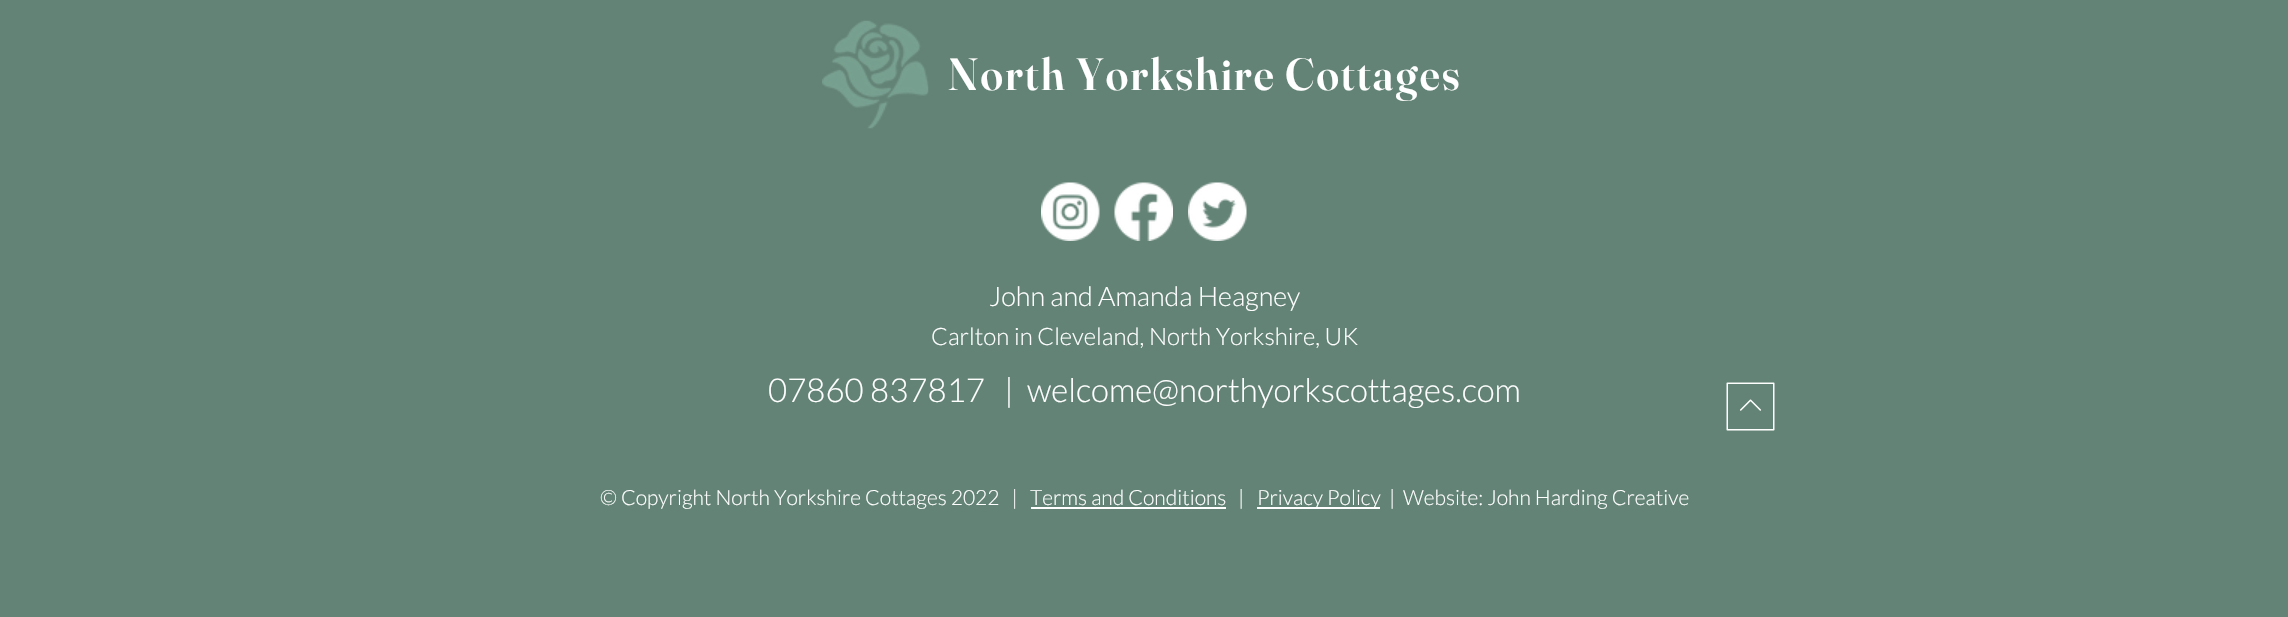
void draw(SkCanvas* canvas) {
  SkPaint paint;
  paint.setAntiAlias(true);
  auto face = [&](const char* family, int weight, float size, bool italic = false) {
    SkFontStyle style(weight, SkFontStyle::kNormal_Width,
      italic ? SkFontStyle::kItalic_Slant : SkFontStyle::kUpright_Slant);
    SkFont result(fontMgr->matchFamilyStyle(family, style), size);
    result.setSubpixel(true);
    return result;
  };
  auto writeSpaced = [&](const char* s, float x, float y, const SkFont& font, const SkPaint& ink, float letter, float word) {
    std::vector<SkGlyphID> glyphs(font.countText(s, strlen(s), SkTextEncoding::kUTF8));
    std::vector<float> xs(glyphs.size());
    font.textToGlyphs(s, strlen(s), SkTextEncoding::kUTF8, glyphs);
    font.getXPos(glyphs, xs, x);
    float extra = 0;
    for (size_t i = 0; i < glyphs.size(); i++) {
      xs[i] += extra;
      extra += letter + word * (glyphs[i] == font.unicharToGlyph(' '));
    }
    canvas->drawTextBlob(SkTextBlob::MakeFromPosHGlyphs(glyphs, xs, y, font), 0, 0, ink);
  };
  auto paste = [&](const char* path, float x, float y, float w, float h) {
    auto image = SkImages::DeferredFromEncodedData(SkData::MakeFromFileName(path));
    canvas->drawImageRect(image, SkRect::MakeXYWH(x, y, w, h), SkSamplingOptions());
  };
  canvas->clear(0xff638376);
  paste("img/1.png", 822, 20, 107, 109);
  paste("img/2.png", 1041, 182, 59, 59);
  paste("img/3.png", 1114, 182, 59, 59);
  paste("img/4.png", 1188, 182, 59, 59);
  paste("img/5.png", 1726, 382, 49, 49);
  paint.setColor(0xffffffff);
  canvas->drawRect(SkRect::MakeXYWH(1031, 507, 195, 2), paint);
  canvas->drawRect(SkRect::MakeXYWH(1257, 507, 123, 2), paint);
  auto f0 = face("Fraunces", 600, 45);
  writeSpaced("North Yorkshire Cottages", 948, 90, f0, paint, 2.25f, 0);
  auto f1 = face("Lato", 300, 27);
  canvas->drawString("John and Amanda Heagney", 989, 306, f1, paint);
  auto f2 = face("Lato", 300, 24);
  canvas->drawString("Carlton in Cleveland, North Yorkshire, UK", 931, 345, f2, paint);
  auto f3 = face("Lato", 300, 33);
  canvas->drawString("07860 837817   |", 768, 402, f3, paint);
  canvas->drawString("welcome@northyorkscottages.com", 1027, 402, f3, paint);
  auto f4 = face("Lato", 300, 21);
  {
    const struct { const char* s; float x, y; } items[] = {
      {"© Copyright North Yorkshire Cottages 2022   |", 600, 505},
      {"Terms and Conditions", 1030, 505},
      {"|", 1238, 505},
      {"Privacy Policy", 1257, 505},
      {"|", 1389, 505},
      {"Website: John Harding Creative", 1403, 505},
    };
    for (auto [s, x, y] : items) {
      canvas->drawString(s, x, y, f4, paint);
    }
  }
}
